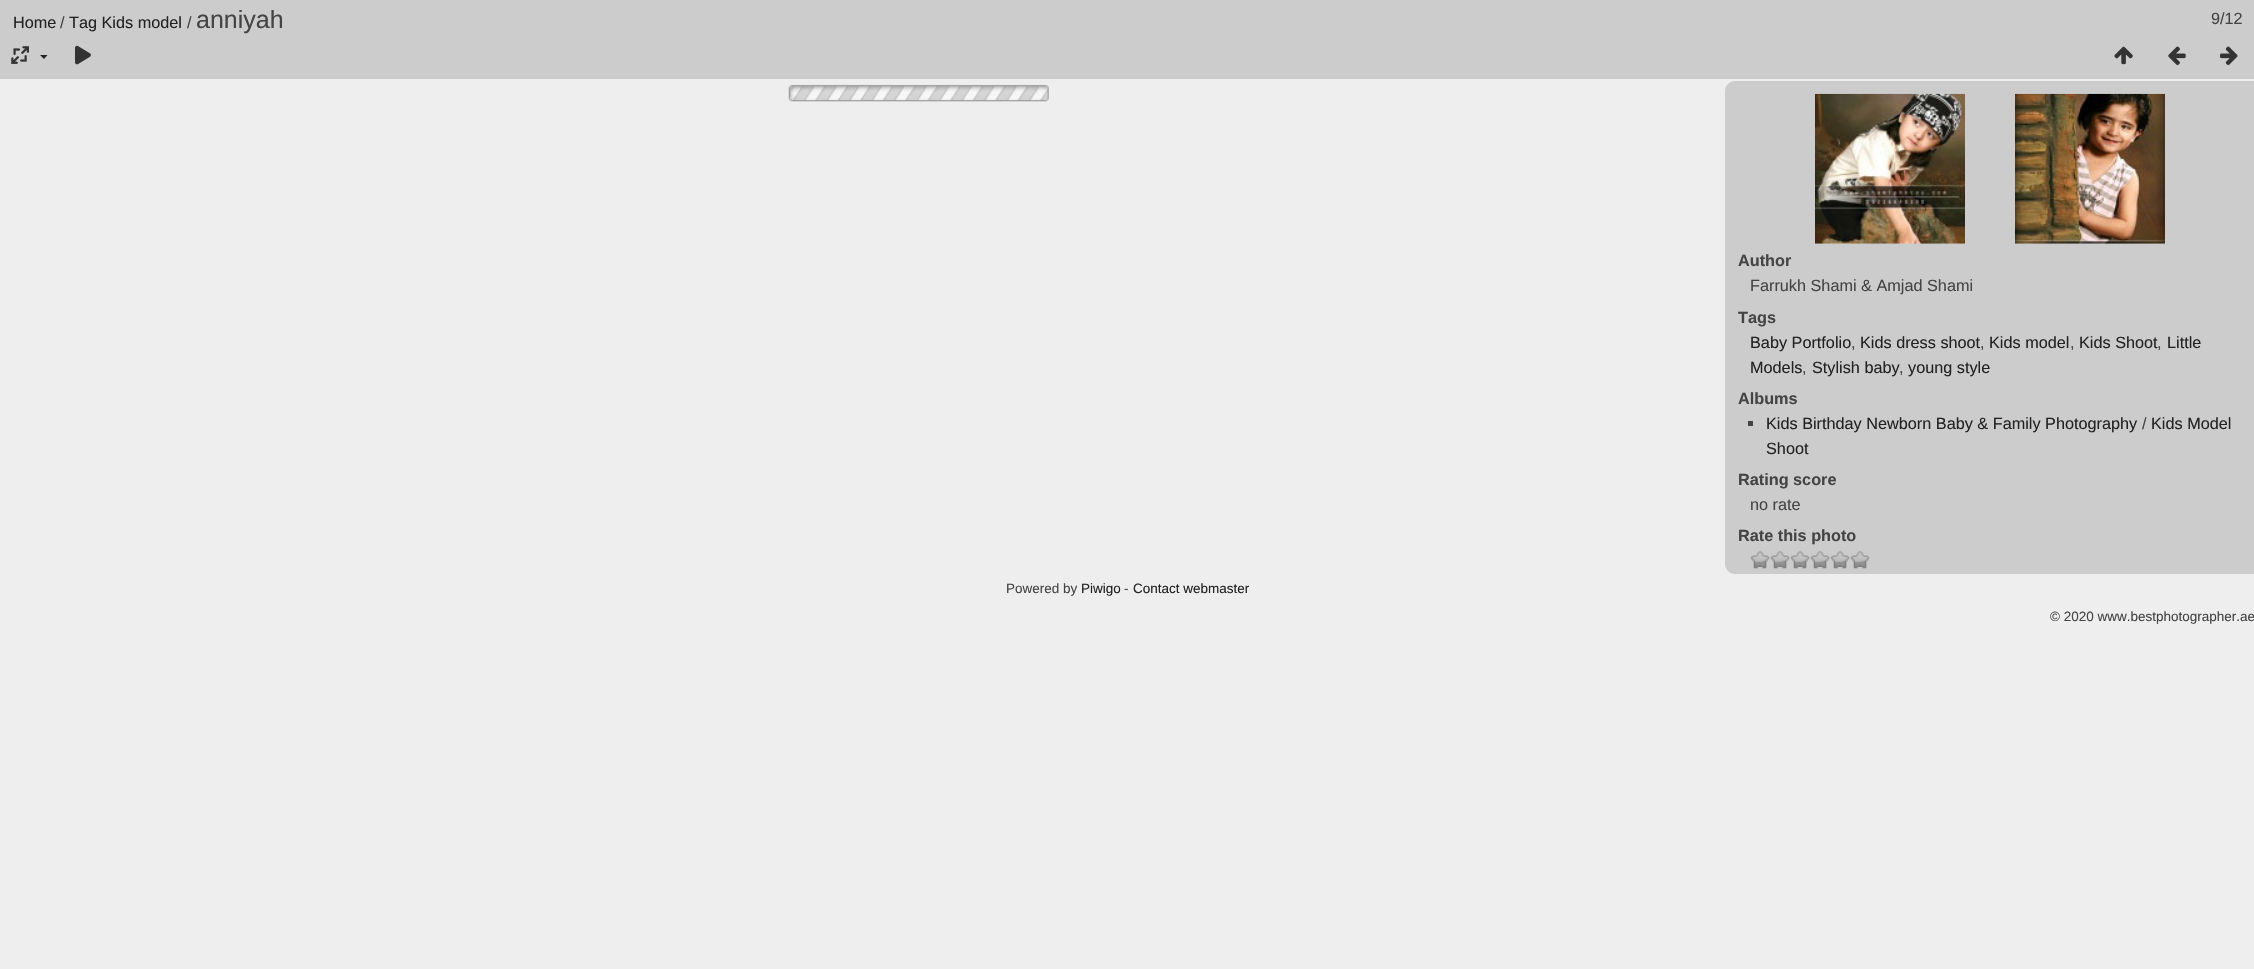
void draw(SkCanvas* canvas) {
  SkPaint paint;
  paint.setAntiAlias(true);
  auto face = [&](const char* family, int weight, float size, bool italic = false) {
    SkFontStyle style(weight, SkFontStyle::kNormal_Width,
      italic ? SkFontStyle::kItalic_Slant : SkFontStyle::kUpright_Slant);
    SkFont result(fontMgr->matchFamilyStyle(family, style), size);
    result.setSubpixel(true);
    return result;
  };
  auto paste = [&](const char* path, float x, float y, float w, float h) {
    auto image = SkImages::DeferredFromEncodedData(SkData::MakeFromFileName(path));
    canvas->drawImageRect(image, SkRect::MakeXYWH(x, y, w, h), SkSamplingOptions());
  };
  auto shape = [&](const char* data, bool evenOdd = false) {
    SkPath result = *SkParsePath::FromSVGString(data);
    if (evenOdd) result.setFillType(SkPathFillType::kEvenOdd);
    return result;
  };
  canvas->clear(0xffeeeeee);
  paint.setColor(0xffcccccc);
  canvas->drawRect(SkRect::MakeXYWH(0, 0, 2254, 79), paint);
  paste("img/1.png", 11, 46, 18, 18);
  paint.setColor(0xff222222);
  canvas->drawPath(shape("M40 55H47.5L44 59Z"), paint);
  paste("img/2.png", 75, 45, 16, 20);
  paste("img/3.png", 2114, 46, 19, 19);
  paste("img/4.png", 2168, 46, 18, 19);
  paste("img/5.png", 2220, 46, 18, 19);
  paste("img/6.png", 788, 84, 261, 18);
  paint.setColor(0xffcccccc);
  canvas->drawPath(shape("M1735 81H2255V574H1735C1729.5 574 1725 569.5 1725 564V91C1725 85.5 1729.5 81 1735 81Z"), paint);
  paste("img/7.png", 1815, 93, 150, 151);
  paste("img/8.png", 2015, 93, 150, 151);
  paint.setColor(0xff444444);
  canvas->drawRect(SkRect::MakeXYWH(1748, 421, 5, 5), paint);
  paste("img/9.png", 1750, 551, 20, 18);
  paste("img/10.png", 1770, 551, 20, 18);
  paste("img/9.png", 1790, 551, 20, 18);
  paste("img/9.png", 1810, 551, 20, 18);
  paste("img/9.png", 1830, 551, 20, 18);
  paste("img/9.png", 1850, 551, 20, 18);
  auto f0 = face("Liberation Sans", 400, 16.25f);
  paint.setColor(0xff222222);
  canvas->drawString("Home", 13, 28, f0, paint);
  paint.setColor(0xff444444);
  canvas->drawString("/", 60, 28, f0, paint);
  paint.setColor(0xff222222);
  canvas->drawString("Tag Kids model", 69, 28, f0, paint);
  paint.setColor(0xff444444);
  canvas->drawString("/", 187, 28, f0, paint);
  auto f1 = face("Liberation Sans", 400, 25);
  canvas->drawString("anniyah", 196, 28, f1, paint);
  canvas->drawString("9/12", 2211, 24, f0, paint);
  auto f2 = face("Liberation Sans", 700, 16.25f);
  canvas->drawString("Author", 1738, 266, f2, paint);
  canvas->drawString("Farrukh Shami & Amjad Shami", 1750, 291, f0, paint);
  canvas->drawString("Tags", 1738, 323, f2, paint);
  paint.setColor(0xff222222);
  canvas->drawString("Baby Portfolio", 1750, 348, f0, paint);
  paint.setColor(0xff444444);
  canvas->drawString(",", 1851, 348, f0, paint);
  paint.setColor(0xff222222);
  canvas->drawString("Kids dress shoot", 1860, 348, f0, paint);
  paint.setColor(0xff444444);
  canvas->drawString(",", 1980, 348, f0, paint);
  paint.setColor(0xff222222);
  canvas->drawString("Kids model", 1989, 348, f0, paint);
  paint.setColor(0xff444444);
  canvas->drawString(",", 2070, 348, f0, paint);
  paint.setColor(0xff222222);
  canvas->drawString("Kids Shoot", 2079, 348, f0, paint);
  paint.setColor(0xff444444);
  canvas->drawString(",", 2157, 348, f0, paint);
  paint.setColor(0xff222222);
  canvas->drawString("Little", 2167, 348, f0, paint);
  canvas->drawString("Models", 1750, 373, f0, paint);
  paint.setColor(0xff444444);
  canvas->drawString(",", 1802, 373, f0, paint);
  paint.setColor(0xff222222);
  canvas->drawString("Stylish baby", 1812, 373, f0, paint);
  paint.setColor(0xff444444);
  canvas->drawString(",", 1899, 373, f0, paint);
  paint.setColor(0xff222222);
  canvas->drawString("young style", 1908, 373, f0, paint);
  paint.setColor(0xff444444);
  canvas->drawString("Albums", 1738, 404, f2, paint);
  paint.setColor(0xff222222);
  canvas->drawString("Kids Birthday Newborn Baby & Family Photography", 1766, 429, f0, paint);
  paint.setColor(0xff444444);
  canvas->drawString("/", 2142, 429, f0, paint);
  paint.setColor(0xff222222);
  canvas->drawString("Kids Model", 2151, 429, f0, paint);
  canvas->drawString("Shoot", 1766, 454, f0, paint);
  paint.setColor(0xff444444);
  canvas->drawString("Rating score", 1738, 485, f2, paint);
  canvas->drawString("no rate", 1750, 510, f0, paint);
  canvas->drawString("Rate this photo", 1738, 541, f2, paint);
  auto f3 = face("Liberation Sans", 400, 13.5f);
  canvas->drawString("Powered by", 1006, 593, f3, paint);
  paint.setColor(0xff222222);
  canvas->drawString("Piwigo", 1081, 593, f3, paint);
  paint.setColor(0xff444444);
  canvas->drawString("-", 1124, 593, f3, paint);
  paint.setColor(0xff222222);
  canvas->drawString("Contact webmaster", 1133, 593, f3, paint);
  paint.setColor(0xff444444);
  canvas->drawString("© 2020 www.bestphotographer.ae", 2050, 621, f3, paint);
}
